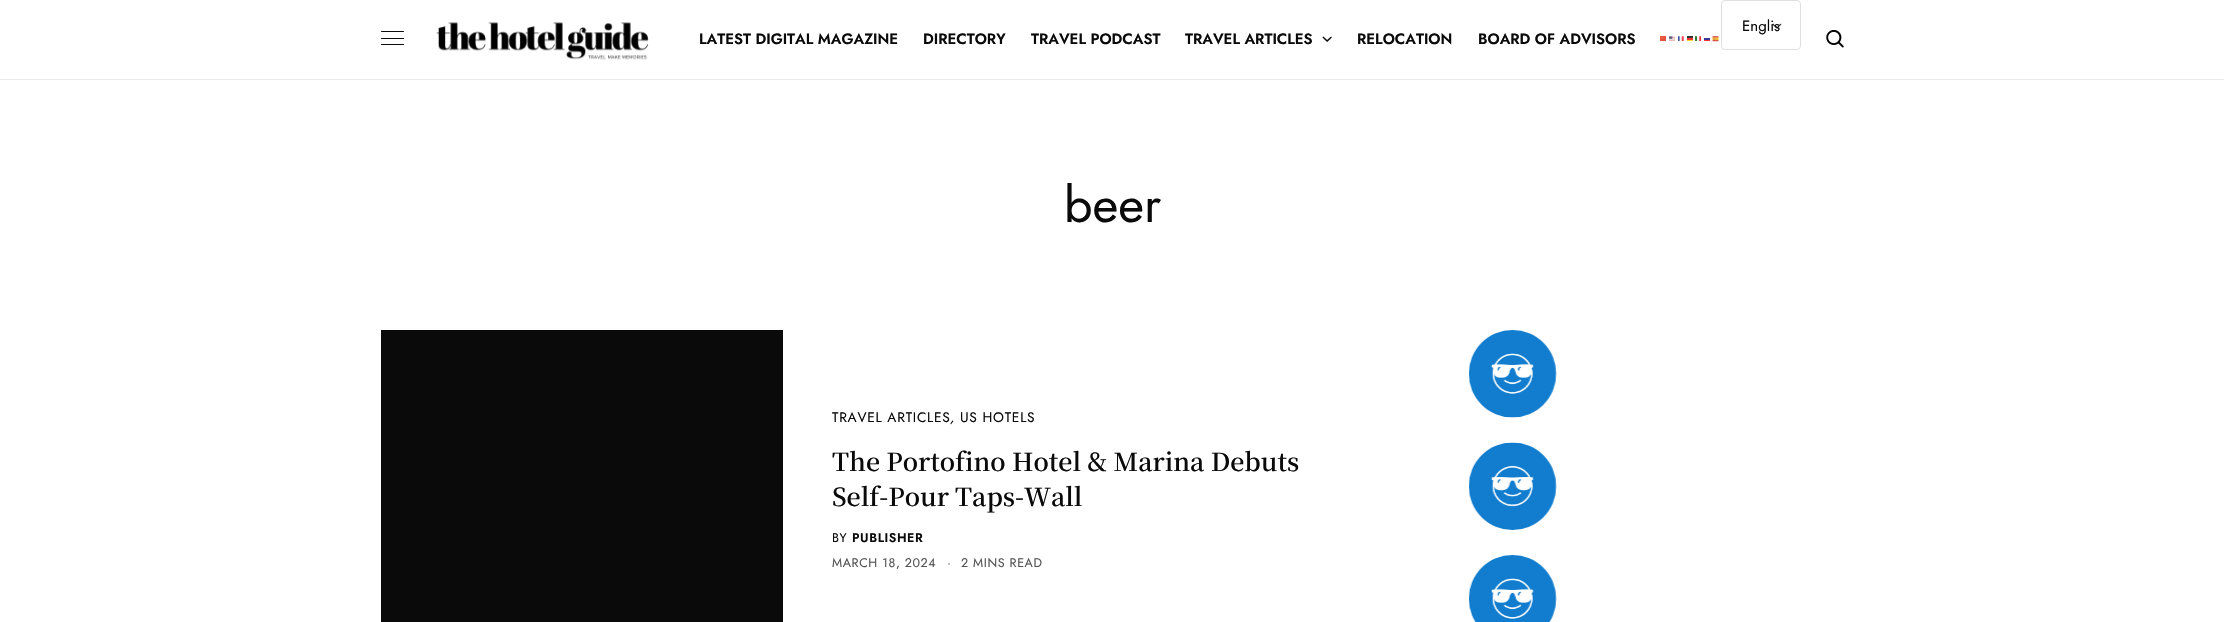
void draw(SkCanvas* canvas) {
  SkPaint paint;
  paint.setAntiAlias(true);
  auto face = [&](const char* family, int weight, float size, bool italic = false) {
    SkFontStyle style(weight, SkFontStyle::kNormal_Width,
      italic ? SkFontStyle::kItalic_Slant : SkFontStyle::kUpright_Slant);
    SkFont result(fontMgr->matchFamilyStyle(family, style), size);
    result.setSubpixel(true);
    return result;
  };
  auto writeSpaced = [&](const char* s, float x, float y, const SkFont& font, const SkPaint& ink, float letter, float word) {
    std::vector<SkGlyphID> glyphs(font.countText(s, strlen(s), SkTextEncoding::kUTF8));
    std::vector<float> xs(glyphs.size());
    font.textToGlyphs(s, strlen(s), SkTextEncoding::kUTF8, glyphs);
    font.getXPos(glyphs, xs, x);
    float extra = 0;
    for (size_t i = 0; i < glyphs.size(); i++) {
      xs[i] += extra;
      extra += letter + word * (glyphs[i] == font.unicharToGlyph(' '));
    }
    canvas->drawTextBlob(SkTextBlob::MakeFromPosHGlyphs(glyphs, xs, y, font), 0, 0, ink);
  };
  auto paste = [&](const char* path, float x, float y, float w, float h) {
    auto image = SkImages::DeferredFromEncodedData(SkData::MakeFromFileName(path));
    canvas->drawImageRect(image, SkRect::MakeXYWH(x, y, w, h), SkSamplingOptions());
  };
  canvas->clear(0xffffffff);
  paint.setColor(0xffe9e9e9);
  canvas->drawRect(SkRect::MakeXYWH(0, 79, 2224, 1), paint);
  paint.setColor(0xff0a0a0a);
  canvas->drawRoundRect(SkRect::MakeXYWH(381, 31, 23, 1), 0.5f, 0.5f, paint);
  canvas->drawRoundRect(SkRect::MakeXYWH(381, 38, 23, 1), 0.5f, 0.5f, paint);
  canvas->drawRoundRect(SkRect::MakeXYWH(381, 44, 23, 1), 0.5f, 0.5f, paint);
  paste("img/1.png", 436, 22, 213, 38);
  paste("img/2.png", 1772, 23, 10, 6);
  paint.setStroke(true);
  paint.setStrokeWidth(1);
  paint.setColor(0xffdfdfdf);
  canvas->drawRoundRect(SkRect::MakeXYWH(1721.5f, 0.5f, 79, 49), 3.5f, 3.5f, paint);
  paste("img/3.png", 1660, 36, 6, 5);
  paste("img/4.png", 1669, 36, 6, 5);
  paste("img/5.png", 1678, 36, 6, 5);
  paint.setStroke(false);
  {
    const struct { float x, y, w, h; SkColor color; } items[] = {
      {1687, 40, 6, 1, 0xffffd633},
      {1687, 36, 6, 2, 0xff333333},
      {1687, 38, 6, 2, 0xffff3333},
    };
    for (auto [x, y, w, h, color] : items) {
      paint.setColor(color);
      canvas->drawRect(SkRect::MakeXYWH(x, y, w, h), paint);
    }
  }
  paste("img/6.png", 1695, 36, 6, 5);
  paint.setColor(0xff343498);
  canvas->drawRect(SkRect::MakeXYWH(1704, 38, 6, 2), paint);
  paint.setColor(0xfffe3434);
  canvas->drawRect(SkRect::MakeXYWH(1704, 40, 6, 1), paint);
  paste("img/7.png", 1712, 36, 7, 6);
  paste("img/8.png", 1322, 36, 10, 6);
  paste("img/9.png", 1826, 30, 18, 18);
  paint.setColor(0xff0a0a0a);
  canvas->drawRect(SkRect::MakeXYWH(381, 330, 402, 292), paint);
  paste("img/10.png", 1469, 330, 88, 88);
  paste("img/11.png", 1469, 442, 88, 88);
  paste("img/12.png", 1469, 555, 88, 67);
  auto f0 = face("Jost", 400, 15);
  canvas->drawString("Englis", 1742, 31, f0, paint);
  auto f1 = face("Jost", 600, 15);
  {
    const struct { const char* s; float x, y; } items[] = {
      {"LATEST DIGITAL MAGAZINE", 699, 44},
      {"DIRECTORY", 923, 44},
      {"TRAVEL PODCAST", 1031, 44},
      {"TRAVEL ARTICLES", 1185, 44},
      {"RELOCATION", 1357, 44},
      {"BOARD OF ADVISORS", 1478, 44},
    };
    for (auto [s, x, y] : items) {
      canvas->drawString(s, x, y, f1, paint);
    }
  }
  auto f2 = face("Jost", 400, 50);
  canvas->drawString("beer", 1064, 222, f2, paint);
  auto f3 = face("Jost", 400, 13.75f);
  writeSpaced("TRAVEL ARTICLES", 832, 422, f3, paint, 0.75f, 0);
  auto f4 = face("Jost", 400, 13.75f, true);
  writeSpaced(",", 950, 422, f4, paint, 0.75f, 0);
  writeSpaced("US HOTELS", 960, 422, f3, paint, 0.75f, 0);
  auto f5 = face("Noto Serif KR", 600, 25);
  canvas->drawString("The Portofino Hotel & Marina Debuts", 832, 471, f5, paint);
  canvas->drawString("Self-Pour Taps-Wall", 832, 506, f5, paint);
  auto f6 = face("Jost", 400, 12.5f);
  writeSpaced("BY", 832, 542, f6, paint, 0.6f, 0);
  auto f7 = face("Jost", 600, 12.5f);
  writeSpaced("PUBLISHER", 852, 542, f7, paint, 0.6f, 0);
  paint.setColor(0xff545454);
  writeSpaced("MARCH 18, 2024", 832, 567, f6, paint, 0.6f, 0);
  paint.setColor(0xffb5b5b5);
  writeSpaced("·", 947, 567, f7, paint, 0.6f, 0);
  paint.setColor(0xff545454);
  writeSpaced("2 MINS READ", 961, 567, f6, paint, 0.6f, 0);
}
